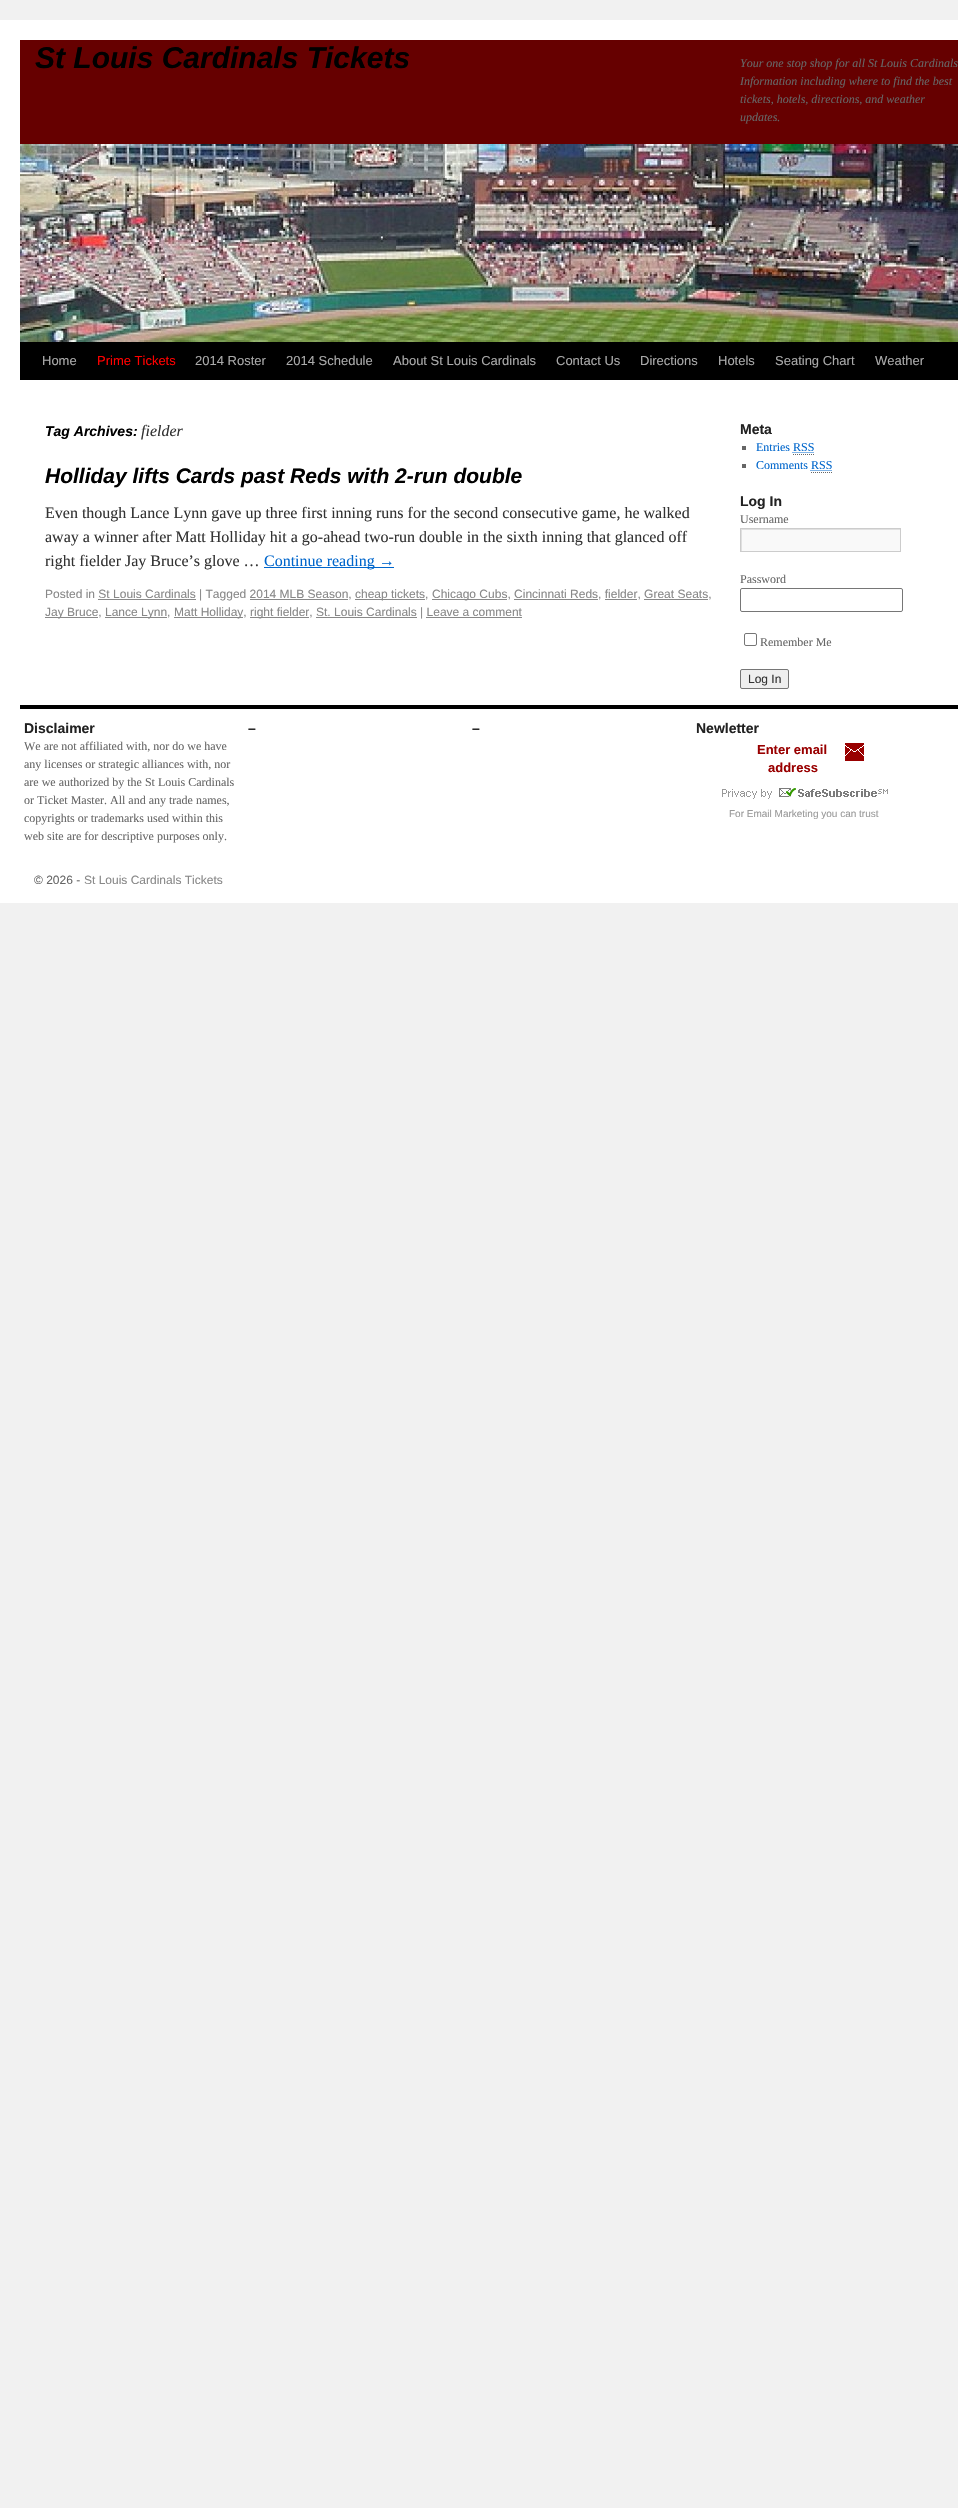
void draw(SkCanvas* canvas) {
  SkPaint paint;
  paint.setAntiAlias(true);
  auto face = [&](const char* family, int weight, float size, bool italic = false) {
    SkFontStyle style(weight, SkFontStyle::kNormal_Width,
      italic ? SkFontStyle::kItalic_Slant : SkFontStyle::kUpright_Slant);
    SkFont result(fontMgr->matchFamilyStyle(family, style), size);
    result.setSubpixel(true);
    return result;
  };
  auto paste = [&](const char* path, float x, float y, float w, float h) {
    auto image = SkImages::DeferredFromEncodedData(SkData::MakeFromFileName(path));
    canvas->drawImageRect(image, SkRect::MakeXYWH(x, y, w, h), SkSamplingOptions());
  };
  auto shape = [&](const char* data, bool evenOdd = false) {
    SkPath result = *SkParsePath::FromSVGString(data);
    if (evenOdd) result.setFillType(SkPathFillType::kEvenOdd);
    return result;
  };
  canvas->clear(0xfff1f1f1);
  paint.setColor(0xffffffff);
  canvas->drawRect(SkRect::MakeXYWH(0, 20, 958, 883), paint);
  paint.setColor(0xff660000);
  canvas->drawRect(SkRect::MakeXYWH(20, 40, 938, 104), paint);
  paste("img/1.png", 20, 144, 938, 198);
  {
    const struct { float x, y, w, h; SkColor color; } items[] = {
      {20, 342, 938, 38, 0xff000000},
      {264, 567, 130, 1, 0xff0066cc},
      {98, 599, 98, 1, 0xff888888},
      {250, 599, 98, 1, 0xff888888},
      {355, 599, 70, 1, 0xff888888},
      {432, 599, 75, 1, 0xff888888},
      {514, 599, 84, 1, 0xff888888},
      {605, 599, 32, 1, 0xff888888},
      {644, 599, 64, 1, 0xff888888},
      {45, 617, 53, 1, 0xff888888},
      {105, 617, 62, 1, 0xff888888},
      {174, 617, 69, 1, 0xff888888},
      {250, 617, 59, 1, 0xff888888},
      {316, 617, 101, 1, 0xff888888},
      {426, 617, 96, 1, 0xff888888},
      {742, 446, 4, 4, 0xff666666},
    };
    for (auto [x, y, w, h, color] : items) {
      paint.setColor(color);
      canvas->drawRect(SkRect::MakeXYWH(x, y, w, h), paint);
    }
  }
  paint.setStroke(true);
  paint.setStrokeWidth(1);
  paint.setPathEffect(SkDashPathEffect::Make({{1, 1}}, 0));
  canvas->drawPath(shape("M793 454.5H814"), paint);
  paint.setPathEffect(nullptr);
  paint.setColor(0xff0066cc);
  paint.setPathEffect(SkDashPathEffect::Make({{1, 1}}, 0));
  canvas->drawPath(shape("M792.5 452.5H814"), paint);
  paint.setPathEffect(nullptr);
  paint.setStroke(false);
  paint.setColor(0xff666666);
  canvas->drawRect(SkRect::MakeXYWH(742, 464, 4, 4), paint);
  paint.setStroke(true);
  paint.setPathEffect(SkDashPathEffect::Make({{1, 1}}, 0));
  canvas->drawPath(shape("M811 472.5H832"), paint);
  paint.setPathEffect(nullptr);
  paint.setColor(0xff0066cc);
  paint.setPathEffect(SkDashPathEffect::Make({{1, 1}}, 0));
  canvas->drawPath(shape("M810.5 470.5H832"), paint);
  paint.setPathEffect(nullptr);
  paint.setStroke(false);
  paint.setColor(0xfff9f9f9);
  canvas->drawRect(SkRect::MakeXYWH(742, 530, 158, 21), paint);
  canvas->save();
  canvas->clipRect(SkRect::MakeXYWH(741, 529, 159, 22));
  paint.setColor(0xffe0e0e0);
  canvas->drawPath(shape("M642 430H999V650H642ZM742 530H901V552H742Z", true), paint);
  canvas->restore();
  paint.setStroke(true);
  paint.setColor(0xffcccccc);
  canvas->drawRect(SkRect::MakeXYWH(740.5f, 528.5f, 160, 23), paint);
  paint.setColor(0xff767676);
  canvas->drawRoundRect(SkRect::MakeXYWH(740.5f, 588.5f, 162, 23), 1.5f, 1.5f, paint);
  canvas->drawRoundRect(SkRect::MakeXYWH(744.5f, 633.5f, 12, 12), 1.5f, 1.5f, paint);
  paint.setStroke(false);
  paint.setColor(0xffefefef);
  canvas->drawRoundRect(SkRect::MakeXYWH(740.5f, 669.5f, 48, 19), 1.5f, 1.5f, paint);
  paint.setStroke(true);
  paint.setColor(0xff767676);
  canvas->drawRoundRect(SkRect::MakeXYWH(740.5f, 669.5f, 48, 19), 1.5f, 1.5f, paint);
  paint.setStroke(false);
  paint.setColor(0xff000000);
  canvas->drawRect(SkRect::MakeXYWH(20, 705, 938, 4), paint);
  paint.setColor(0xff990000);
  canvas->drawRect(SkRect::MakeXYWH(845, 743, 19, 18), paint);
  paste("img/2.png", 845, 745, 19, 11);
  paste("img/3.png", 722, 788, 166, 11);
  auto f0 = face("Liberation Sans", 700, 30, true);
  paint.setColor(0xff000000);
  canvas->drawString("St Louis Cardinals Tickets", 35, 68, f0, paint);
  auto f1 = face("Liberation Serif", 400, 12, true);
  paint.setColor(0xff666666);
  {
    const struct { const char* s; float x, y; } items[] = {
      {"Your one stop shop for all St Louis Cardinals", 740, 67},
      {"Information including where to find the best", 740, 85},
      {"tickets, hotels, directions, and weather", 740, 103},
      {"updates.", 740, 121},
    };
    for (auto [s, x, y] : items) {
      canvas->drawString(s, x, y, f1, paint);
    }
  }
  auto f2 = face("Liberation Sans", 400, 13);
  paint.setColor(0xffaaaaaa);
  canvas->drawString("Home", 42, 365, f2, paint);
  paint.setColor(0xffff0000);
  canvas->drawString("Prime Tickets", 97, 365, f2, paint);
  paint.setColor(0xffaaaaaa);
  {
    const struct { const char* s; float x, y; } items[] = {
      {"2014 Roster", 195, 365},
      {"2014 Schedule", 286, 365},
      {"About St Louis Cardinals", 393, 365},
      {"Contact Us", 556, 365},
      {"Directions", 640, 365},
      {"Hotels", 718, 365},
      {"Seating Chart", 775, 365},
      {"Weather", 875, 365},
    };
    for (auto [s, x, y] : items) {
      canvas->drawString(s, x, y, f2, paint);
    }
  }
  auto f3 = face("Liberation Sans", 700, 14, true);
  paint.setColor(0xff000000);
  canvas->drawString("Tag Archives:", 45, 436, f3, paint);
  auto f4 = face("Liberation Serif", 400, 16, true);
  paint.setColor(0xff333333);
  canvas->drawString("fielder", 141, 436, f4, paint);
  auto f5 = face("Liberation Sans", 700, 21, true);
  paint.setColor(0xff000000);
  canvas->drawString("Holliday lifts Cards past Reds with 2-run double", 45, 483, f5, paint);
  auto f6 = face("Liberation Serif", 400, 16);
  paint.setColor(0xff333333);
  {
    const struct { const char* s; float x, y; } items[] = {
      {"Even though Lance Lynn gave up three first inning runs for the second consecutive game, he walked", 45, 518},
      {"away a winner after Matt Holliday hit a go-ahead two-run double in the sixth inning that glanced off", 45, 542},
      {"right fielder Jay Bruce’s glove …", 45, 566},
    };
    for (auto [s, x, y] : items) {
      canvas->drawString(s, x, y, f6, paint);
    }
  }
  paint.setColor(0xff0066cc);
  canvas->drawString("Continue reading →", 264, 566, f6, paint);
  auto f7 = face("Liberation Sans", 400, 12);
  paint.setColor(0xff888888);
  {
    const struct { const char* s; float x, y; } items[] = {
      {"Posted in St Louis Cardinals | Tagged 2014 MLB Season,", 45, 598},
      {"cheap tickets,", 355, 598},
      {"Chicago Cubs, Cincinnati Reds, fielder, Great Seats,", 432, 598},
      {"Jay Bruce,", 45, 616},
      {"Lance Lynn,", 105, 616},
      {"Matt Holliday,", 174, 616},
      {"right fielder, St. Louis Cardinals | Leave a comment", 250, 616},
    };
    for (auto [s, x, y] : items) {
      canvas->drawString(s, x, y, f7, paint);
    }
  }
  auto f8 = face("Liberation Sans", 700, 14);
  paint.setColor(0xff222222);
  canvas->drawString("Meta", 740, 434, f8, paint);
  auto f9 = face("Liberation Serif", 400, 12);
  paint.setColor(0xff0066cc);
  canvas->drawString("Entries RSS", 756, 451, f9, paint);
  canvas->drawString("Comments RSS", 756, 469, f9, paint);
  paint.setColor(0xff222222);
  canvas->drawString("Log In", 740, 506, f8, paint);
  paint.setColor(0xff666666);
  {
    const struct { const char* s; float x, y; } items[] = {
      {"Username", 740, 523},
      {"Password", 740, 583},
      {"Remember Me", 760, 646},
    };
    for (auto [s, x, y] : items) {
      canvas->drawString(s, x, y, f9, paint);
    }
  }
  paint.setColor(0xff333333);
  canvas->drawString("Log In", 748, 683, f7, paint);
  paint.setColor(0xff222222);
  canvas->drawString("Disclaimer", 24, 733, f8, paint);
  paint.setColor(0xff666666);
  {
    const struct { const char* s; float x, y; } items[] = {
      {"We are not affiliated with, nor do we have", 24, 750},
      {"any licenses or strategic alliances with, nor", 24, 768},
      {"are we authorized by the St Louis Cardinals", 24, 786},
      {"or Ticket Master. All and any trade names,", 24, 804},
      {"copyrights or trademarks used within this", 24, 822},
      {"web site are for descriptive purposes only.", 24, 840},
    };
    for (auto [s, x, y] : items) {
      canvas->drawString(s, x, y, f9, paint);
    }
  }
  paint.setColor(0xff222222);
  {
    const struct { const char* s; float x, y; } items[] = {
      {"–", 248, 733},
      {"–", 472, 733},
      {"Newletter", 696, 733},
    };
    for (auto [s, x, y] : items) {
      canvas->drawString(s, x, y, f8, paint);
    }
  }
  auto f10 = face("Liberation Sans", 700, 13);
  paint.setColor(0xff990000);
  canvas->drawString("Enter email", 757, 754, f10, paint);
  canvas->drawString("address", 768, 772, f10, paint);
  auto f11 = face("Liberation Sans", 400, 10);
  paint.setColor(0xff999999);
  canvas->drawString("For Email Marketing you can trust", 729, 817, f11, paint);
  paint.setColor(0xff666666);
  canvas->drawString("© 2026 -", 34, 884, f7, paint);
  paint.setColor(0xff888888);
  canvas->drawString("St Louis Cardinals Tickets", 84, 884, f7, paint);
}
